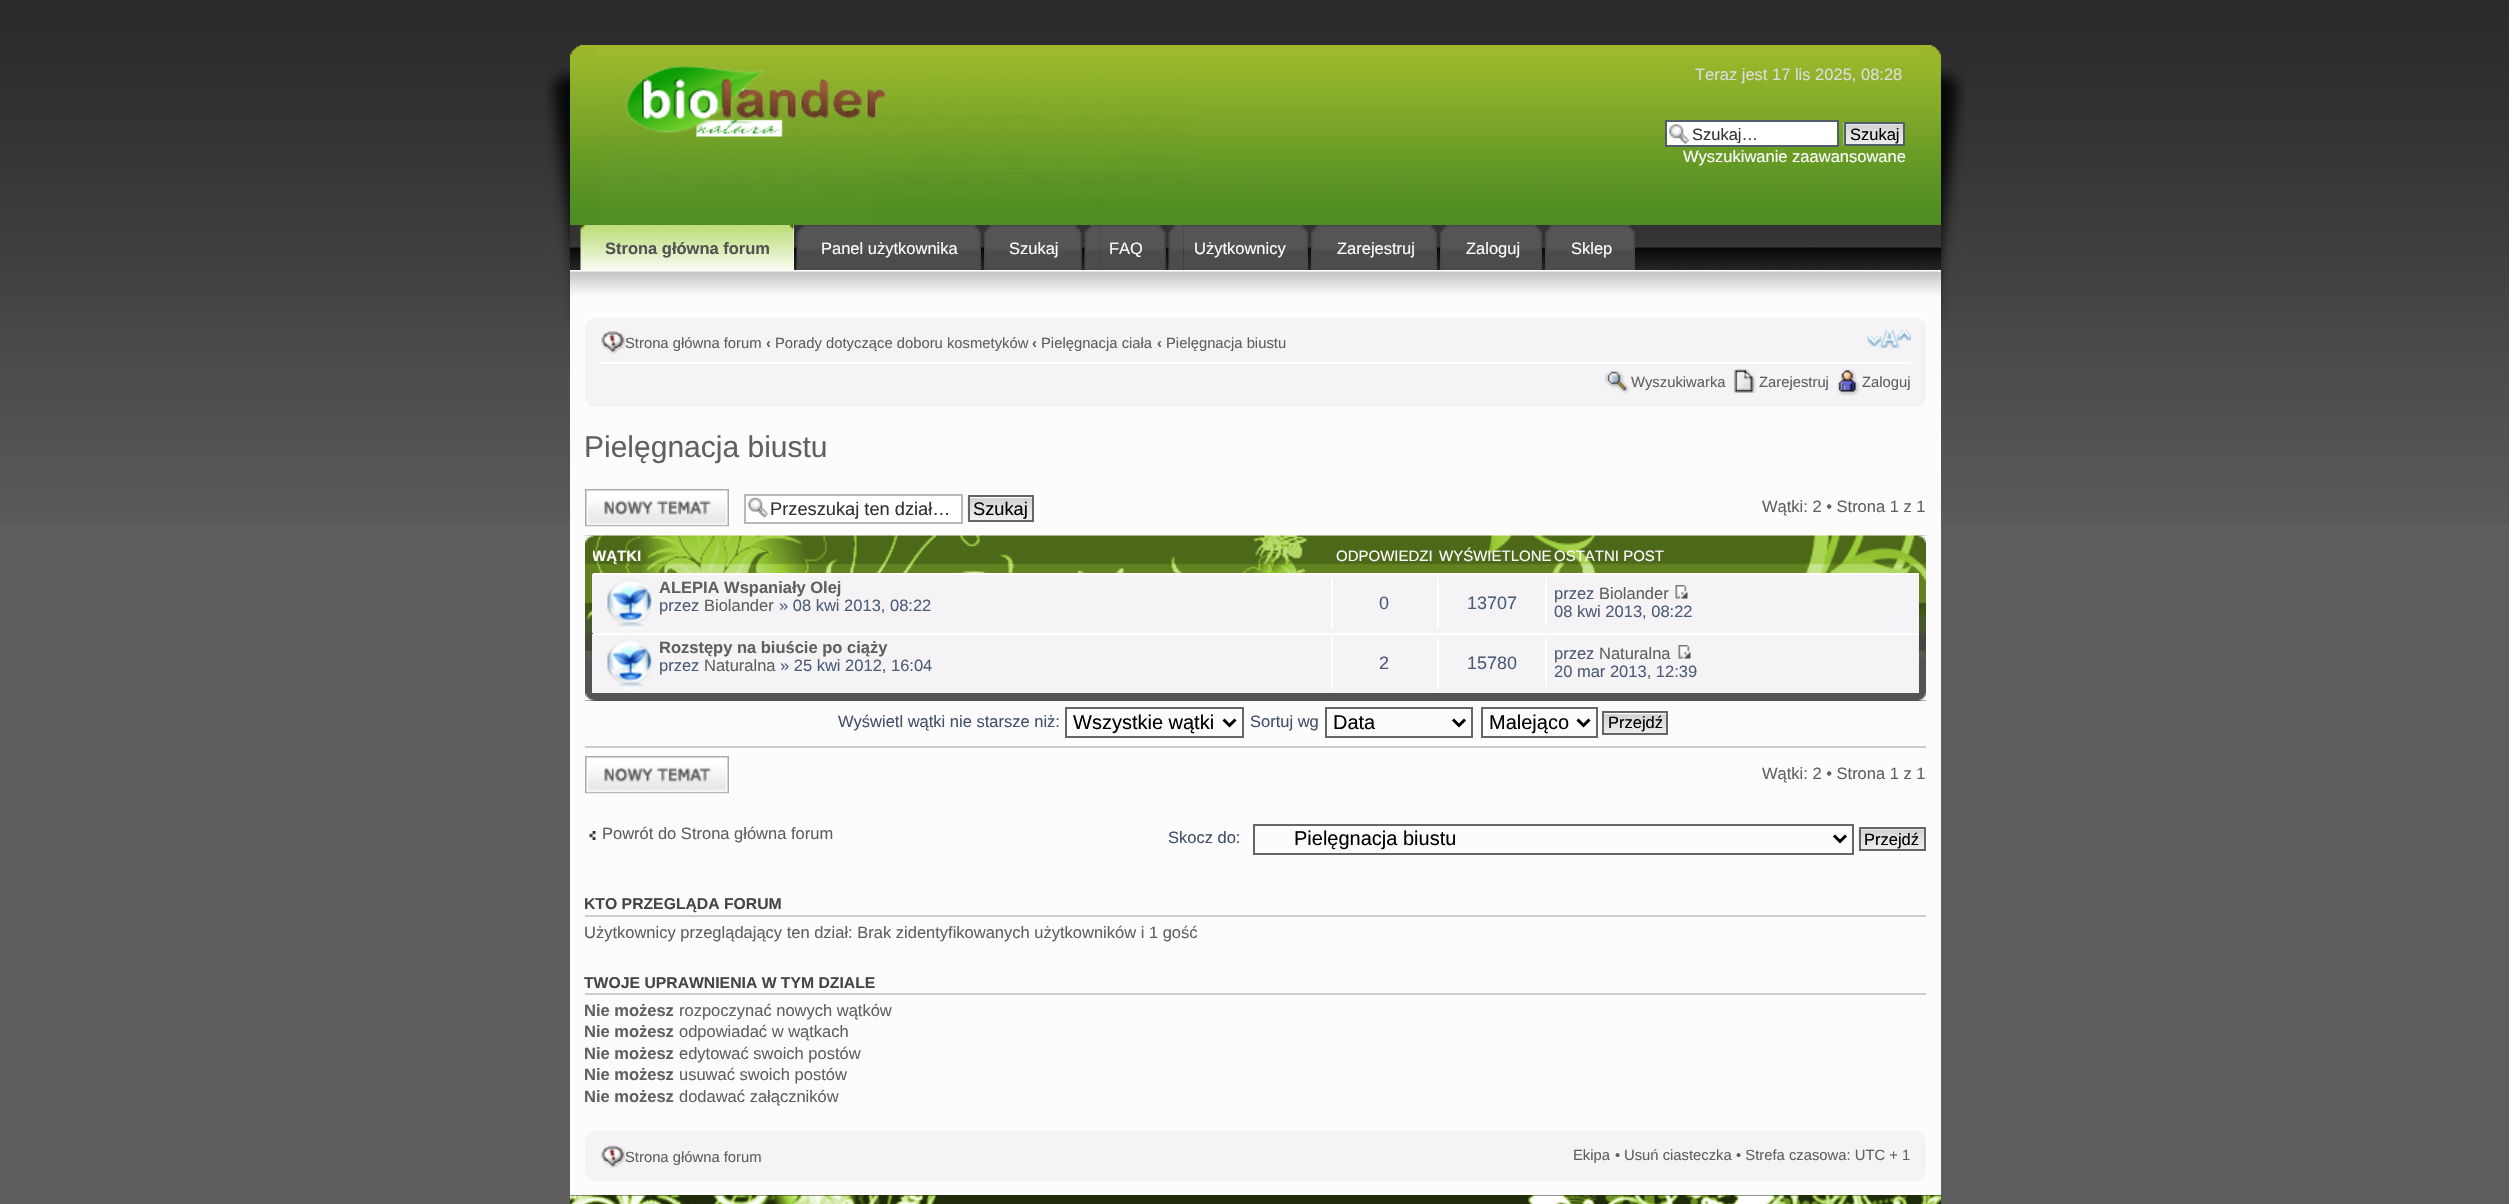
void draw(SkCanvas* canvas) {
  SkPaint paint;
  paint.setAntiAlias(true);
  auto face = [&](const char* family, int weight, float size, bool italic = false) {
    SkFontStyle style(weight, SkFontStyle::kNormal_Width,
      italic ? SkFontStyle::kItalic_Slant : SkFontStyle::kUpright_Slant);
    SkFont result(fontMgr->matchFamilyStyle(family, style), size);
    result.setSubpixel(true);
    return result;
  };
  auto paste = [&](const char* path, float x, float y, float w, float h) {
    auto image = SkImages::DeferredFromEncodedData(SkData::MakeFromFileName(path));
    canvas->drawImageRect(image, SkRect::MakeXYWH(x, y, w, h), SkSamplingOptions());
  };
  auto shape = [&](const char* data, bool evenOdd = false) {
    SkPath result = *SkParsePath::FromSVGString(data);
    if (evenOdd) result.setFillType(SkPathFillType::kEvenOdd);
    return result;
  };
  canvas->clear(0xff5f5e5e);
  paste("img/1.png", 0, 0, 2509, 525);
  paste("img/2.png", 546, 68, 24, 255);
  paste("img/3.png", 1941, 68, 24, 257);
  paint.setColor(0xff9db92c);
  canvas->drawRect(SkRect::MakeXYWH(594, 45, 1325, 11), paint);
  paste("img/4.png", 570, 56, 1371, 169);
  paste("img/5.png", 570, 45, 24, 11);
  paste("img/6.png", 1919, 45, 22, 11);
  paste("img/7.png", 600, 65, 596, 160);
  paint.setColor(0xffffffff);
  canvas->drawRect(SkRect::MakeXYWH(1667, 122, 170, 23), paint);
  paste("img/8.png", 1669, 124, 21, 20);
  paint.setStroke(true);
  paint.setStrokeWidth(2);
  paint.setColor(0xff525e67);
  canvas->drawRect(SkRect::MakeXYWH(1666, 121, 172, 25), paint);
  paste("img/9.png", 1843, 123, 60, 23);
  canvas->drawRect(SkRect::MakeXYWH(1845, 123, 59, 22), paint);
  paste("img/10.png", 570, 225, 1371, 45);
  paste("img/11.png", 580, 225, 16, 45);
  paint.setStroke(false);
  paint.setColor(0xffffffff);
  canvas->drawRect(SkRect::MakeXYWH(793, 225, 1, 45), paint);
  paste("img/12.png", 596, 225, 198, 45);
  paste("img/13.png", 796, 225, 16, 45);
  paste("img/14.png", 812, 225, 169, 45);
  paint.setColor(0xff313131);
  canvas->drawRect(SkRect::MakeXYWH(1081, 240, 1, 30), paint);
  paste("img/15.png", 984, 225, 15, 45);
  paste("img/16.png", 999, 225, 83, 45);
  canvas->drawRect(SkRect::MakeXYWH(1099, 240, 67, 30), paint);
  paste("img/17.png", 1084, 225, 16, 45);
  paste("img/18.png", 1099, 225, 67, 45);
  paste("img/19.png", 1168, 225, 16, 45);
  paste("img/20.png", 1183, 225, 125, 45);
  paste("img/15.png", 1311, 225, 15, 45);
  paste("img/21.png", 1326, 225, 111, 45);
  paste("img/15.png", 1440, 225, 15, 45);
  paste("img/22.png", 1455, 225, 87, 45);
  paste("img/15.png", 1545, 225, 15, 45);
  paste("img/23.png", 1560, 225, 75, 45);
  paint.setColor(0xfffcfcfc);
  canvas->drawRect(SkRect::MakeXYWH(570, 270, 1371, 925), paint);
  paste("img/24.png", 570, 271, 1371, 24);
  paint.setColor(0xfff5f3f5);
  canvas->drawRect(SkRect::MakeXYWH(585, 318, 1341, 89), paint);
  paste("img/25.png", 585, 318, 7, 6);
  paste("img/26.png", 1920, 318, 6, 6);
  paint.setColor(0xffffffff);
  canvas->drawRect(SkRect::MakeXYWH(600, 362, 1311, 2), paint);
  paste("img/27.png", 601, 331, 25, 23);
  paste("img/28.png", 1867, 329, 44, 20);
  paste("img/29.png", 1605, 370, 24, 24);
  paste("img/30.png", 1733, 369, 23, 24);
  paste("img/31.png", 1837, 369, 23, 27);
  paste("img/32.png", 585, 400, 7, 7);
  paste("img/33.png", 1920, 400, 6, 7);
  paste("img/34.png", 585, 489, 144, 38);
  canvas->drawRect(SkRect::MakeXYWH(746, 496, 215, 26), paint);
  paste("img/35.png", 748, 497, 21, 21);
  paint.setStroke(true);
  paint.setColor(0xffb4bac0);
  canvas->drawRect(SkRect::MakeXYWH(745, 495, 217, 28), paint);
  paste("img/36.png", 967, 498, 65, 24);
  paint.setColor(0xff666666);
  canvas->drawRect(SkRect::MakeXYWH(969, 496, 64, 25), paint);
  paint.setStroke(false);
  paint.setColor(0xff535353);
  canvas->drawRect(SkRect::MakeXYWH(585, 662, 1341, 39), paint);
  paste("img/37.png", 585, 535, 1341, 127);
  paste("img/38.png", 585, 535, 10, 8);
  paste("img/39.png", 1918, 535, 8, 8);
  paint.setColor(0xfff5f3f5);
  canvas->drawRect(SkRect::MakeXYWH(592, 574, 1327, 59), paint);
  paint.setColor(0xffffffff);
  canvas->drawRect(SkRect::MakeXYWH(593, 573, 1326, 2), paint);
  paste("img/40.png", 607, 579, 45, 51);
  {
    const struct { float x, y, w, h; SkColor color; } items[] = {
      {1331, 578, 2, 51, 0xffffffff},
      {1437, 578, 2, 51, 0xffffffff},
      {1545, 578, 2, 48, 0xffffffff},
    };
    for (auto [x, y, w, h, color] : items) {
      paint.setColor(color);
      canvas->drawRect(SkRect::MakeXYWH(x, y, w, h), paint);
    }
  }
  paste("img/41.png", 1675, 585, 13, 14);
  paint.setColor(0xfff5f3f5);
  canvas->drawRect(SkRect::MakeXYWH(592, 634, 1327, 59), paint);
  paint.setColor(0xffffffff);
  canvas->drawRect(SkRect::MakeXYWH(593, 633, 1326, 2), paint);
  paste("img/40.png", 607, 639, 45, 51);
  {
    const struct { float x, y, w, h; SkColor color; } items[] = {
      {1331, 638, 2, 51, 0xffffffff},
      {1437, 638, 2, 51, 0xffffffff},
      {1545, 638, 2, 48, 0xffffffff},
    };
    for (auto [x, y, w, h, color] : items) {
      paint.setColor(color);
      canvas->drawRect(SkRect::MakeXYWH(x, y, w, h), paint);
    }
  }
  paste("img/41.png", 1678, 645, 13, 14);
  paste("img/42.png", 585, 693, 10, 8);
  paste("img/43.png", 1918, 693, 8, 8);
  paint.setStroke(true);
  paint.setColor(0xff666666);
  canvas->drawRect(SkRect::MakeXYWH(1066, 708, 177, 29), paint);
  paint.setStrokeWidth(3);
  paint.setColor(0xff000000);
  canvas->drawPath(shape("M1223.5 719.5L1229.5 725.5L1235.5 719.5"), paint);
  paint.setStrokeWidth(2);
  paint.setColor(0xff666666);
  canvas->drawRect(SkRect::MakeXYWH(1326, 708, 146, 29), paint);
  paint.setStrokeWidth(3);
  paint.setColor(0xff000000);
  canvas->drawPath(shape("M1453 719.5L1459 725.5L1465 719.5"), paint);
  paint.setStrokeWidth(2);
  paint.setColor(0xff666666);
  canvas->drawRect(SkRect::MakeXYWH(1482, 708, 115, 29), paint);
  paint.setStrokeWidth(3);
  paint.setColor(0xff000000);
  canvas->drawPath(shape("M1577.5 719.5L1583.5 725.5L1589.5 719.5"), paint);
  paste("img/44.png", 1604, 714, 62, 19);
  paint.setStrokeWidth(2);
  paint.setColor(0xff666666);
  canvas->drawRect(SkRect::MakeXYWH(1603, 712, 64, 22), paint);
  paint.setStroke(false);
  paint.setColor(0xffcccccc);
  canvas->drawRect(SkRect::MakeXYWH(585, 746, 1341, 2), paint);
  paste("img/34.png", 585, 756, 144, 38);
  paste("img/45.png", 589, 831, 7, 9);
  paint.setStroke(true);
  paint.setColor(0xff666666);
  canvas->drawRect(SkRect::MakeXYWH(1254, 825, 599, 29), paint);
  paint.setStrokeWidth(3);
  paint.setColor(0xff000000);
  canvas->drawPath(shape("M1834 835.5L1840 841.5L1846 835.5"), paint);
  paste("img/46.png", 1858, 828, 66, 23);
  paint.setStrokeWidth(2);
  paint.setColor(0xff666666);
  canvas->drawRect(SkRect::MakeXYWH(1860, 828, 65, 22), paint);
  paint.setStroke(false);
  {
    const struct { float x, y, w, h; SkColor color; } items[] = {
      {585, 915, 1341, 2, 0xffcccccc},
      {585, 993, 1341, 2, 0xffcccccc},
      {585, 1131, 1341, 50, 0xfff5f3f5},
    };
    for (auto [x, y, w, h, color] : items) {
      paint.setColor(color);
      canvas->drawRect(SkRect::MakeXYWH(x, y, w, h), paint);
    }
  }
  paste("img/25.png", 585, 1131, 7, 6);
  paste("img/26.png", 1920, 1131, 6, 6);
  paste("img/47.png", 601, 1145, 25, 23);
  paste("img/32.png", 585, 1174, 7, 7);
  paste("img/33.png", 1920, 1174, 6, 7);
  paint.setColor(0xff202b0b);
  canvas->drawRect(SkRect::MakeXYWH(570, 1195, 1371, 9), paint);
  paste("img/48.png", 570, 1195, 367, 9);
  paste("img/49.png", 1528, 1195, 413, 9);
  auto f0 = face("Liberation Sans", 400, 16.5f);
  paint.setColor(0xffdddddd);
  canvas->drawString("Teraz jest 17 lis 2025, 08:28", 1695, 80, f0, paint);
  canvas->save();
  canvas->clipRect(SkRect::MakeXYWH(1692, 125, 143, 18));
  paint.setColor(0xff333333);
  canvas->drawString("Szukaj…", 1692, 140, f0, paint);
  canvas->restore();
  paint.setColor(0xff000000);
  canvas->drawString("Szukaj", 1850, 140, f0, paint);
  paint.setColor(0xfffcfcfc);
  canvas->drawString("Wyszukiwanie zaawansowane", 1683, 162, f0, paint);
  auto f1 = face("Liberation Sans", 700, 16.5f);
  paint.setColor(0xff525252);
  canvas->drawString("Strona główna forum", 605, 254, f1, paint);
  paint.setColor(0xfffcfcfc);
  {
    const struct { const char* s; float x, y; } items[] = {
      {"Panel użytkownika", 821, 254},
      {"Szukaj", 1009, 254},
      {"FAQ", 1109, 254},
      {"Użytkownicy", 1194, 254},
      {"Zarejestruj", 1337, 254},
      {"Zaloguj", 1466, 254},
      {"Sklep", 1571, 254},
    };
    for (auto [s, x, y] : items) {
      canvas->drawString(s, x, y, f0, paint);
    }
  }
  auto f2 = face("Liberation Sans", 400, 14.8f);
  paint.setColor(0xff606060);
  canvas->drawString("Strona główna forum", 625, 348, f2, paint);
  auto f3 = face("Liberation Sans", 700, 14.8f);
  canvas->drawString("‹", 766, 348, f3, paint);
  canvas->drawString("Porady dotyczące doboru kosmetyków", 775, 348, f2, paint);
  canvas->drawString("‹", 1032, 348, f3, paint);
  canvas->drawString("Pielęgnacja ciała", 1041, 348, f2, paint);
  canvas->drawString("‹", 1157, 348, f3, paint);
  {
    const struct { const char* s; float x, y; } items[] = {
      {"Pielęgnacja biustu", 1166, 348},
      {"Wyszukiwarka", 1631, 387},
      {"Zarejestruj", 1759, 387},
      {"Zaloguj", 1862, 387},
    };
    for (auto [s, x, y] : items) {
      canvas->drawString(s, x, y, f2, paint);
    }
  }
  auto f4 = face("Liberation Sans", 400, 30);
  canvas->drawString("Pielęgnacja biustu", 584, 457, f4, paint);
  auto f5 = face("Liberation Sans", 400, 18.25f);
  paint.setColor(0xff333333);
  canvas->drawString("Przeszukaj ten dział…", 770, 515, f5, paint);
  paint.setColor(0xff000000);
  canvas->drawString("Szukaj", 973, 515, f5, paint);
  paint.setColor(0xff606060);
  canvas->drawString("Wątki: 2 • Strona 1 z 1", 1762, 512, f0, paint);
  canvas->save();
  canvas->clipRect(SkRect::MakeXYWH(593, 543, 1326, 30));
  auto f6 = face("Liberation Sans", 700, 15);
  paint.setColor(0xfffcfcfc);
  canvas->drawString("WĄTKI", 592, 561, f6, paint);
  canvas->restore();
  auto f7 = face("Liberation Sans", 400, 15);
  {
    const struct { const char* s; float x, y; } items[] = {
      {"ODPOWIEDZI", 1336, 561},
      {"WYŚWIETLONE", 1439, 561},
      {"OSTATNI POST", 1554, 561},
    };
    for (auto [s, x, y] : items) {
      canvas->drawString(s, x, y, f7, paint);
    }
  }
  paint.setColor(0xff606060);
  canvas->drawString("ALEPIA Wspaniały Olej", 659, 593, f1, paint);
  paint.setColor(0xff4c5d77);
  canvas->drawString("przez", 659, 611, f0, paint);
  paint.setColor(0xff606060);
  canvas->drawString("Biolander", 704, 611, f0, paint);
  paint.setColor(0xff4c5d77);
  canvas->drawString("» 08 kwi 2013, 08:22", 779, 611, f0, paint);
  auto f8 = face("Liberation Sans", 400, 18);
  canvas->drawString("0", 1379, 609, f8, paint);
  canvas->drawString("13707", 1467, 609, f8, paint);
  canvas->drawString("przez", 1554, 599, f0, paint);
  paint.setColor(0xff606060);
  canvas->drawString("Biolander", 1599, 599, f0, paint);
  paint.setColor(0xff4c5d77);
  canvas->drawString("08 kwi 2013, 08:22", 1554, 617, f0, paint);
  paint.setColor(0xff606060);
  canvas->drawString("Rozstępy na biuście po ciąży", 659, 653, f1, paint);
  paint.setColor(0xff4c5d77);
  canvas->drawString("przez", 659, 671, f0, paint);
  paint.setColor(0xff606060);
  canvas->drawString("Naturalna", 704, 671, f0, paint);
  paint.setColor(0xff4c5d77);
  canvas->drawString("» 25 kwi 2012, 16:04", 780, 671, f0, paint);
  canvas->drawString("2", 1379, 669, f8, paint);
  canvas->drawString("15780", 1467, 669, f8, paint);
  canvas->drawString("przez", 1554, 659, f0, paint);
  paint.setColor(0xff606060);
  canvas->drawString("Naturalna", 1599, 659, f0, paint);
  paint.setColor(0xff4c5d77);
  canvas->drawString("20 mar 2013, 12:39", 1554, 677, f0, paint);
  paint.setColor(0xff425067);
  canvas->drawString("Wyświetl wątki nie starsze niż:", 838, 727, f0, paint);
  auto f9 = face("Liberation Sans", 400, 20);
  paint.setColor(0xff000000);
  canvas->drawString("Wszystkie wątki", 1073, 729, f9, paint);
  paint.setColor(0xff425067);
  canvas->drawString("Sortuj wg", 1250, 727, f0, paint);
  paint.setColor(0xff000000);
  canvas->drawString("Data", 1333, 729, f9, paint);
  canvas->drawString("Malejąco", 1489, 729, f9, paint);
  canvas->drawString("Przejdź", 1608, 728, f0, paint);
  paint.setColor(0xff606060);
  canvas->drawString("Wątki: 2 • Strona 1 z 1", 1762, 779, f0, paint);
  canvas->drawString("Powrót do Strona główna forum", 602, 839, f0, paint);
  paint.setColor(0xff425067);
  canvas->drawString("Skocz do:", 1168, 843, f0, paint);
  paint.setColor(0xff000000);
  canvas->drawString("Pielęgnacja biustu", 1294, 845, f9, paint);
  canvas->drawString("Przejdź", 1864, 845, f0, paint);
  auto f10 = face("Liberation Sans", 700, 15.75f);
  paint.setColor(0xff464646);
  canvas->drawString("KTO PRZEGLĄDA FORUM", 584, 909, f10, paint);
  paint.setColor(0xff606060);
  canvas->drawString("Użytkownicy przeglądający ten dział: Brak zidentyfikowanych użytkowników i 1 gość", 584, 938, f0, paint);
  paint.setColor(0xff464646);
  canvas->drawString("TWOJE UPRAWNIENIA W TYM DZIALE", 584, 988, f10, paint);
  paint.setColor(0xff606060);
  canvas->drawString("Nie możesz", 584, 1016, f1, paint);
  canvas->drawString("rozpoczynać nowych wątków", 679, 1016, f0, paint);
  canvas->drawString("Nie możesz", 584, 1037, f1, paint);
  canvas->drawString("odpowiadać w wątkach", 679, 1037, f0, paint);
  canvas->drawString("Nie możesz", 584, 1059, f1, paint);
  canvas->drawString("edytować swoich postów", 679, 1059, f0, paint);
  canvas->drawString("Nie możesz", 584, 1080, f1, paint);
  canvas->drawString("usuwać swoich postów", 679, 1080, f0, paint);
  canvas->drawString("Nie możesz", 584, 1102, f1, paint);
  canvas->drawString("dodawać załączników", 679, 1102, f0, paint);
  {
    const struct { const char* s; float x, y; } items[] = {
      {"Strona główna forum", 625, 1162},
      {"Ekipa", 1573, 1160},
      {"•", 1615, 1160},
      {"Usuń ciasteczka", 1624, 1160},
      {"• Strefa czasowa: UTC + 1", 1736, 1160},
    };
    for (auto [s, x, y] : items) {
      canvas->drawString(s, x, y, f2, paint);
    }
  }
}
